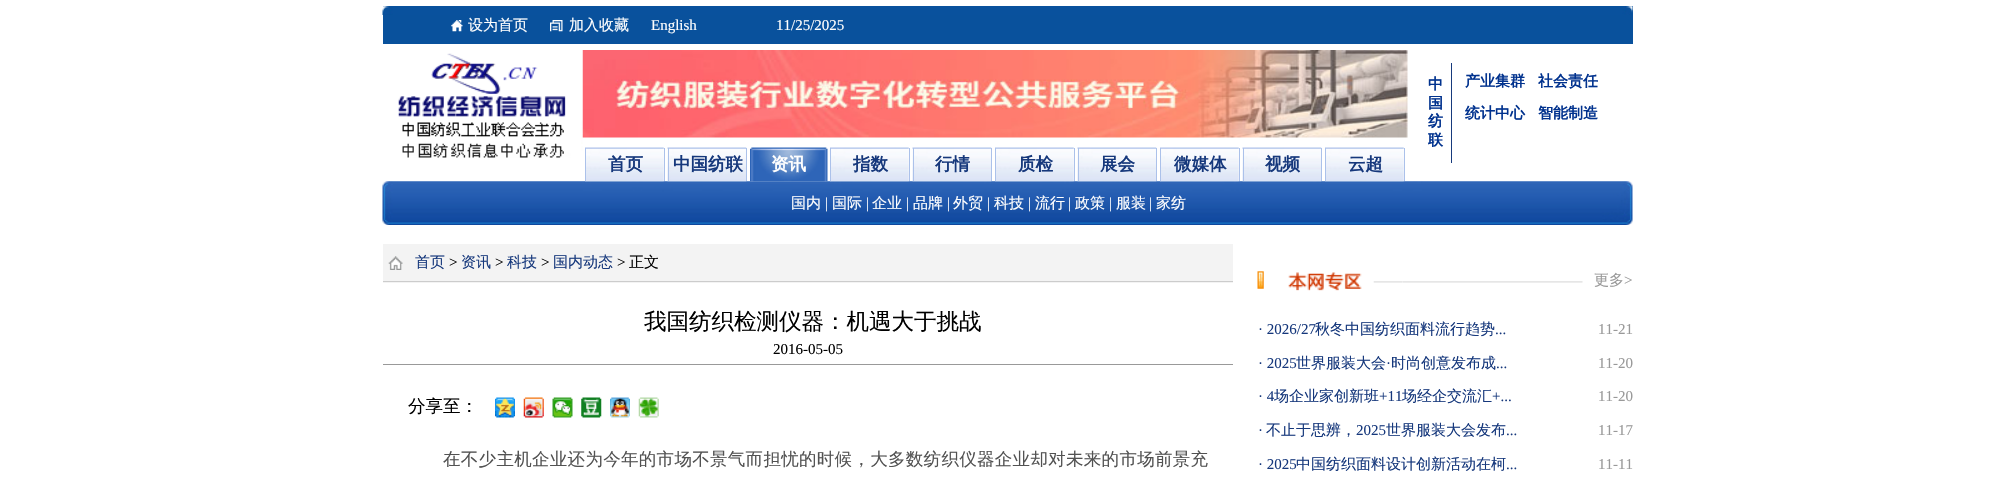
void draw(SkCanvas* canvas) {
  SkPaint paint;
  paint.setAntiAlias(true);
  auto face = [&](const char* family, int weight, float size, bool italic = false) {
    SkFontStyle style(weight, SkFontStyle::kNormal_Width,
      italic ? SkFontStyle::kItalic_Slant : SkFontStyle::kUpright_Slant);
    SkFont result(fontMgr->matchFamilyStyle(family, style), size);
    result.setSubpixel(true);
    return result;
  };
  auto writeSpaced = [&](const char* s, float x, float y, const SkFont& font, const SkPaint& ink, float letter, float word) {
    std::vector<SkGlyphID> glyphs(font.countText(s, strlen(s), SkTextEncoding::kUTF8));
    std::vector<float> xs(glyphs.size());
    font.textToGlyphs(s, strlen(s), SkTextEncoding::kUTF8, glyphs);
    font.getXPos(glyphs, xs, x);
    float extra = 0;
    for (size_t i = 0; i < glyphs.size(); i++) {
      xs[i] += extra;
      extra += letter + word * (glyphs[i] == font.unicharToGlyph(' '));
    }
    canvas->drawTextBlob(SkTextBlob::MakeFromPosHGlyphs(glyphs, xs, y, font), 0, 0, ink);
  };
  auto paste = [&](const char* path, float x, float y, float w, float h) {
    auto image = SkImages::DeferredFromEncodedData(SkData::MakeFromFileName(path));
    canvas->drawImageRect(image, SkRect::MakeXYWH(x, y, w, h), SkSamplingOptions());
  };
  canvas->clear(0xffffffff);
  paint.setColor(0xff09519c);
  canvas->drawRect(SkRect::MakeXYWH(383, 6, 1250, 38), paint);
  paste("img/1.png", 382, 6, 1251, 9);
  paste("img/2.png", 451, 20, 12, 12);
  paste("img/3.png", 550, 20, 13, 12);
  paste("img/5.png", 582, 50, 826, 88);
  paste("img/4.png", 398, 50, 185, 108);
  paint.setColor(0xff173a7c);
  canvas->drawRect(SkRect::MakeXYWH(1451, 63, 1, 100), paint);
  paste("img/16.png", 382, 181, 1251, 44);
  paste("img/6.png", 585, 147, 79, 35);
  paint.setColor(0xffabc1ea);
  canvas->drawRect(SkRect::MakeXYWH(664, 148, 1, 33), paint);
  canvas->drawRect(SkRect::MakeXYWH(585, 148, 1, 33), paint);
  paste("img/7.png", 667, 147, 80, 35);
  canvas->drawRect(SkRect::MakeXYWH(746, 148, 1, 33), paint);
  canvas->drawRect(SkRect::MakeXYWH(668, 148, 1, 33), paint);
  paste("img/8.png", 750, 147, 78, 35);
  paste("img/9.png", 830, 147, 79, 35);
  canvas->drawRect(SkRect::MakeXYWH(909, 148, 1, 33), paint);
  canvas->drawRect(SkRect::MakeXYWH(830, 148, 1, 33), paint);
  paste("img/10.png", 912, 147, 80, 35);
  canvas->drawRect(SkRect::MakeXYWH(991, 148, 1, 33), paint);
  canvas->drawRect(SkRect::MakeXYWH(913, 148, 1, 33), paint);
  paste("img/11.png", 995, 147, 79, 35);
  canvas->drawRect(SkRect::MakeXYWH(1074, 148, 1, 33), paint);
  canvas->drawRect(SkRect::MakeXYWH(995, 148, 1, 33), paint);
  paste("img/12.png", 1077, 147, 80, 35);
  canvas->drawRect(SkRect::MakeXYWH(1156, 148, 1, 33), paint);
  canvas->drawRect(SkRect::MakeXYWH(1078, 148, 1, 33), paint);
  paste("img/13.png", 1160, 147, 79, 35);
  canvas->drawRect(SkRect::MakeXYWH(1239, 148, 1, 33), paint);
  canvas->drawRect(SkRect::MakeXYWH(1160, 148, 1, 33), paint);
  paste("img/14.png", 1242, 147, 80, 35);
  canvas->drawRect(SkRect::MakeXYWH(1321, 148, 1, 33), paint);
  canvas->drawRect(SkRect::MakeXYWH(1243, 148, 1, 33), paint);
  paste("img/15.png", 1325, 147, 79, 35);
  {
    const struct { float x, y, w, h; SkColor color; } items[] = {
      {1404, 148, 1, 33, 0xffabc1ea},
      {1325, 148, 1, 33, 0xffabc1ea},
      {383, 244, 850, 39, 0xfff3f3f3},
      {383, 281, 850, 1, 0xffcccccc},
    };
    for (auto [x, y, w, h, color] : items) {
      paint.setColor(color);
      canvas->drawRect(SkRect::MakeXYWH(x, y, w, h), paint);
    }
  }
  paste("img/17.png", 388, 256, 15, 14);
  paint.setColor(0xff999999);
  canvas->drawRect(SkRect::MakeXYWH(383, 364, 850, 1), paint);
  paste("img/18.png", 495, 397, 20, 21);
  paste("img/19.png", 523, 397, 21, 21);
  paste("img/20.png", 552, 397, 21, 21);
  paste("img/21.png", 581, 397, 21, 21);
  paste("img/22.png", 610, 397, 20, 21);
  paste("img/23.png", 638, 397, 21, 21);
  paste("img/25.png", 1402, 281, 181, 2);
  paste("img/24.png", 1257, 271, 146, 20);
  auto f0 = face("WenQuanYi Zen Hei", 500, 15);
  paint.setColor(0xffffffff);
  canvas->drawString("设为首页", 468, 30, f0, paint);
  canvas->drawString("加入收藏", 569, 30, f0, paint);
  auto f1 = face("Liberation Serif", 400, 15);
  canvas->drawString("English", 651, 30, f1, paint);
  canvas->drawString("11/25/2025", 776, 30, f1, paint);
  auto f2 = face("WenQuanYi Zen Hei", 700, 15);
  paint.setColor(0xff01328e);
  {
    const struct { const char* s; float x, y; } items[] = {
      {"中", 1428, 89},
      {"国", 1428, 108},
      {"纺", 1428, 126},
      {"联", 1428, 145},
      {"产业集群", 1465, 86},
      {"社会责任", 1538, 86},
      {"统计中心", 1465, 118},
      {"智能制造", 1538, 118},
    };
    for (auto [s, x, y] : items) {
      canvas->drawString(s, x, y, f2, paint);
    }
  }
  auto f3 = face("WenQuanYi Zen Hei", 700, 17.5f);
  paint.setColor(0xff16387c);
  canvas->drawString("首页", 608, 170, f3, paint);
  canvas->drawString("中国纺联", 673, 170, f3, paint);
  paint.setColor(0xffffffff);
  canvas->drawString("资讯", 771, 170, f3, paint);
  paint.setColor(0xff16387c);
  {
    const struct { const char* s; float x, y; } items[] = {
      {"指数", 853, 170},
      {"行情", 935, 170},
      {"质检", 1018, 170},
      {"展会", 1100, 170},
      {"微媒体", 1174, 170},
      {"视频", 1265, 170},
      {"云超", 1348, 170},
    };
    for (auto [s, x, y] : items) {
      canvas->drawString(s, x, y, f3, paint);
    }
  }
  paint.setColor(0xffffffff);
  canvas->drawString("国内", 791, 208, f0, paint);
  canvas->drawString("|", 825, 208, f1, paint);
  canvas->drawString("国际", 832, 208, f0, paint);
  canvas->drawString("|", 866, 208, f1, paint);
  canvas->drawString("企业", 872, 208, f0, paint);
  canvas->drawString("|", 906, 208, f1, paint);
  canvas->drawString("品牌", 913, 208, f0, paint);
  canvas->drawString("|", 947, 208, f1, paint);
  canvas->drawString("外贸", 953, 208, f0, paint);
  canvas->drawString("|", 987, 208, f1, paint);
  canvas->drawString("科技", 994, 208, f0, paint);
  canvas->drawString("|", 1028, 208, f1, paint);
  canvas->drawString("流行", 1035, 208, f0, paint);
  canvas->drawString("|", 1068, 208, f1, paint);
  canvas->drawString("政策", 1075, 208, f0, paint);
  canvas->drawString("|", 1109, 208, f1, paint);
  canvas->drawString("服装", 1116, 208, f0, paint);
  canvas->drawString("|", 1149, 208, f1, paint);
  canvas->drawString("家纺", 1156, 208, f0, paint);
  paint.setColor(0xff16387c);
  canvas->drawString("首页", 415, 267, f0, paint);
  paint.setColor(0xff000000);
  canvas->drawString(">", 449, 267, f1, paint);
  paint.setColor(0xff16387c);
  canvas->drawString("资讯", 461, 267, f0, paint);
  paint.setColor(0xff000000);
  canvas->drawString(">", 495, 267, f1, paint);
  paint.setColor(0xff16387c);
  canvas->drawString("科技", 507, 267, f0, paint);
  paint.setColor(0xff000000);
  canvas->drawString(">", 541, 267, f1, paint);
  paint.setColor(0xff16387c);
  canvas->drawString("国内动态", 553, 267, f0, paint);
  paint.setColor(0xff000000);
  canvas->drawString(">", 617, 267, f1, paint);
  canvas->drawString("正文", 629, 267, f0, paint);
  auto f4 = face("WenQuanYi Zen Hei", 500, 22.5f);
  canvas->drawString("我国纺织检测仪器：机遇大于挑战", 644, 329, f4, paint);
  canvas->drawString("2016-05-05", 773, 354, f1, paint);
  auto f5 = face("WenQuanYi Zen Hei", 500, 17.5f);
  canvas->drawString("分享至：", 408, 412, f5, paint);
  paint.setColor(0xff525252);
  writeSpaced("在不少主机企业还为今年的市场不景气而担忧的时候，大多数纺织仪器企业却对未来的市场前景充", 443, 465, f5, paint, 0.3f, 0);
  paint.setColor(0xff999999);
  canvas->drawString("更多", 1594, 285, f0, paint);
  canvas->drawString(">", 1624, 285, f1, paint);
  paint.setColor(0xff16387c);
  canvas->drawString("· 2026/27", 1258, 334, f1, paint);
  canvas->drawString("秋冬中国纺织面料流行趋势", 1315, 334, f0, paint);
  canvas->drawString("...", 1495, 334, f1, paint);
  paint.setColor(0xff999999);
  canvas->drawString("11-21", 1598, 334, f1, paint);
  paint.setColor(0xff16387c);
  canvas->drawString("· 2025", 1258, 368, f1, paint);
  canvas->drawString("世界服装大会", 1296, 368, f0, paint);
  canvas->drawString("·", 1386, 368, f1, paint);
  canvas->drawString("时尚创意发布成", 1391, 368, f0, paint);
  paint.setColor(0xff999999);
  canvas->drawString("11-20", 1598, 368, f1, paint);
  paint.setColor(0xff16387c);
  canvas->drawString("...", 1496, 368, f1, paint);
  canvas->drawString("· 4", 1258, 401, f1, paint);
  canvas->drawString("场企业家创新班", 1274, 401, f0, paint);
  canvas->drawString("+11", 1379, 401, f1, paint);
  canvas->drawString("场经企交流汇", 1402, 401, f0, paint);
  canvas->drawString("+...", 1492, 401, f1, paint);
  paint.setColor(0xff999999);
  canvas->drawString("11-20", 1598, 401, f1, paint);
  paint.setColor(0xff16387c);
  canvas->drawString("·", 1258, 435, f1, paint);
  canvas->drawString("不止于思辨，", 1266, 435, f0, paint);
  canvas->drawString("2025", 1356, 435, f1, paint);
  canvas->drawString("世界服装大会发布", 1386, 435, f0, paint);
  paint.setColor(0xff999999);
  canvas->drawString("11-17", 1598, 435, f1, paint);
  paint.setColor(0xff16387c);
  canvas->drawString("...", 1506, 435, f1, paint);
  canvas->drawString("· 2025", 1258, 469, f1, paint);
  canvas->drawString("中国纺织面料设计创新活动在柯", 1296, 469, f0, paint);
  canvas->drawString("...", 1506, 469, f1, paint);
  paint.setColor(0xff999999);
  canvas->drawString("11-11", 1598, 469, f1, paint);
}
